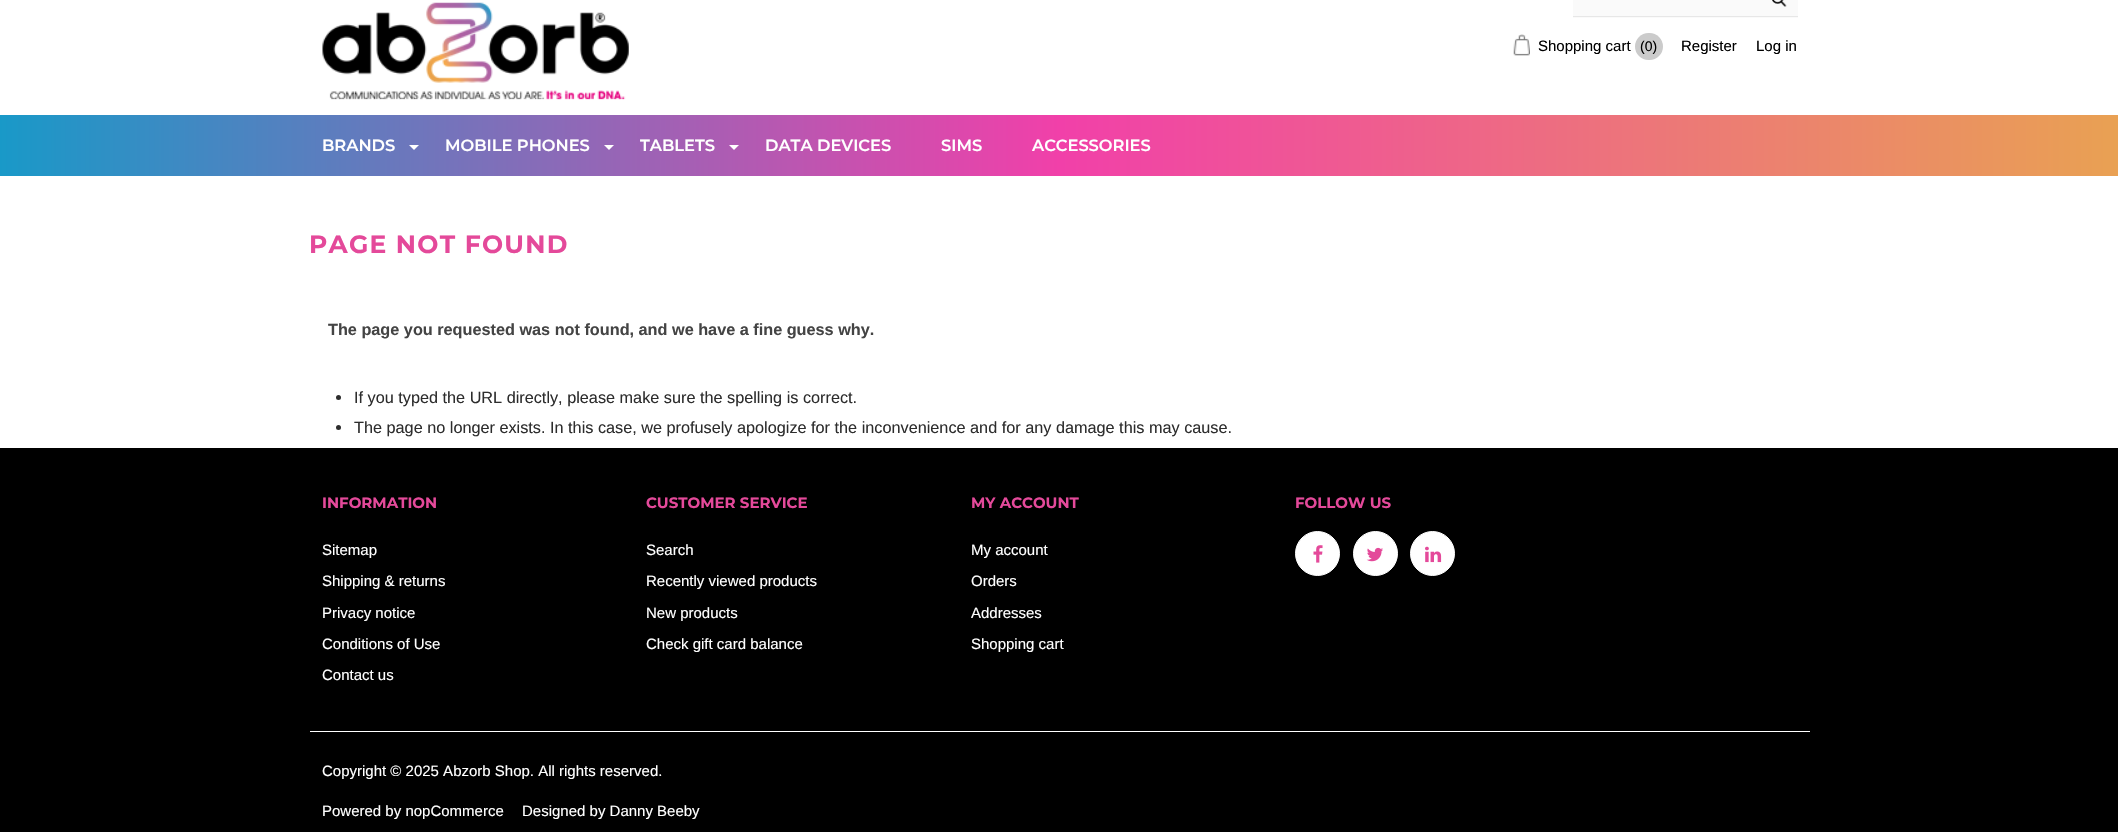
void draw(SkCanvas* canvas) {
  SkPaint paint;
  paint.setAntiAlias(true);
  auto face = [&](const char* family, int weight, float size, bool italic = false) {
    SkFontStyle style(weight, SkFontStyle::kNormal_Width,
      italic ? SkFontStyle::kItalic_Slant : SkFontStyle::kUpright_Slant);
    SkFont result(fontMgr->matchFamilyStyle(family, style), size);
    result.setSubpixel(true);
    return result;
  };
  auto writeSpaced = [&](const char* s, float x, float y, const SkFont& font, const SkPaint& ink, float letter, float word) {
    std::vector<SkGlyphID> glyphs(font.countText(s, strlen(s), SkTextEncoding::kUTF8));
    std::vector<float> xs(glyphs.size());
    font.textToGlyphs(s, strlen(s), SkTextEncoding::kUTF8, glyphs);
    font.getXPos(glyphs, xs, x);
    float extra = 0;
    for (size_t i = 0; i < glyphs.size(); i++) {
      xs[i] += extra;
      extra += letter + word * (glyphs[i] == font.unicharToGlyph(' '));
    }
    canvas->drawTextBlob(SkTextBlob::MakeFromPosHGlyphs(glyphs, xs, y, font), 0, 0, ink);
  };
  auto paste = [&](const char* path, float x, float y, float w, float h) {
    auto image = SkImages::DeferredFromEncodedData(SkData::MakeFromFileName(path));
    canvas->drawImageRect(image, SkRect::MakeXYWH(x, y, w, h), SkSamplingOptions());
  };
  auto shape = [&](const char* data, bool evenOdd = false) {
    SkPath result = *SkParsePath::FromSVGString(data);
    if (evenOdd) result.setFillType(SkPathFillType::kEvenOdd);
    return result;
  };
  canvas->clear(0xffffffff);
  paint.setColor(0xfffafafa);
  canvas->drawRect(SkRect::MakeXYWH(1573, 0, 225, 18), paint);
  paint.setColor(0xffe7e7e7);
  canvas->drawRect(SkRect::MakeXYWH(1573, 16, 225, 1), paint);
  paste("img/1.png", 1772, 0, 15, 7);
  paste("img/2.png", 322, 2, 307, 98);
  paste("img/3.png", 1513, 34, 17, 22);
  paint.setColor(0xffcbcbcb);
  canvas->drawRoundRect(SkRect::MakeXYWH(1635, 33, 28, 27), 13.5f, 13.5f, paint);
  {
    const SkColor colors[] = {0xff1999c8, 0xfff140a9, 0xffe9a153};
    const float stops[] = {0, 0.5f, 1};
    const SkPoint ends[] = {{0, 146}, {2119, 146}};
    paint.setShader(SkGradientShader::MakeLinear(ends, colors, stops, 3, SkTileMode::kClamp));
    paint.setAlpha(255);
  }
  canvas->drawRect(SkRect::MakeXYWH(0, 115, 2118, 61), paint);
  paint.setShader(nullptr);
  paint.setColor(0xffffffff);
  canvas->drawPath(shape("M409 145H419L414 150Z"), paint);
  canvas->drawPath(shape("M604 145H614L609 150Z"), paint);
  canvas->drawPath(shape("M729 145H739L734 150Z"), paint);
  paint.setColor(0xff2d2d2d);
  canvas->drawCircle(338.5f, 397.5f, 2.5f, paint);
  canvas->drawCircle(338.5f, 427.5f, 2.5f, paint);
  paint.setColor(0xff000000);
  canvas->drawRect(SkRect::MakeXYWH(0, 448, 2118, 384), paint);
  paint.setColor(0xffffffff);
  canvas->drawRect(SkRect::MakeXYWH(310, 731, 1500, 1), paint);
  canvas->drawCircle(1317.5f, 553.5f, 22, paint);
  paint.setStroke(true);
  paint.setStrokeWidth(1);
  canvas->drawCircle(1317.5f, 553.5f, 22, paint);
  paste("img/4.png", 1313, 545, 10, 18);
  paint.setStroke(false);
  canvas->drawCircle(1375.5f, 553.5f, 22, paint);
  paint.setStroke(true);
  canvas->drawCircle(1375.5f, 553.5f, 22, paint);
  paste("img/5.png", 1366, 547, 17, 15);
  paint.setStroke(false);
  canvas->drawCircle(1432.5f, 553.5f, 22, paint);
  paint.setStroke(true);
  canvas->drawCircle(1432.5f, 553.5f, 22, paint);
  paste("img/6.png", 1425, 546, 17, 17);
  auto f0 = face("Arimo", 400, 15);
  paint.setStroke(false);
  paint.setColor(0xff000000);
  canvas->drawString("Shopping cart", 1538, 51, f0, paint);
  auto f1 = face("Arimo", 400, 14);
  canvas->drawString("(0)", 1640, 51, f1, paint);
  canvas->drawString("Register", 1681, 51, f0, paint);
  canvas->drawString("Log in", 1756, 51, f0, paint);
  auto f2 = face("Montserrat", 600, 16.25f);
  paint.setColor(0xffffffff);
  {
    const struct { const char* s; float x, y; } items[] = {
      {"BRANDS", 322, 151},
      {"MOBILE PHONES", 445, 151},
      {"TABLETS", 640, 151},
      {"DATA DEVICES", 765, 151},
      {"SIMS", 941, 151},
      {"ACCESSORIES", 1032, 151},
    };
    for (auto [s, x, y] : items) {
      canvas->drawString(s, x, y, f2, paint);
    }
  }
  auto f3 = face("Montserrat", 700, 25);
  paint.setColor(0xffe4499a);
  writeSpaced("PAGE NOT FOUND", 309, 253, f3, paint, 1.25f, 0);
  auto f4 = face("Arimo", 700, 16.25f);
  paint.setColor(0xff444444);
  canvas->drawString("The page you requested was not found, and we have a fine guess why.", 328, 335, f4, paint);
  auto f5 = face("Arimo", 400, 16.25f);
  paint.setColor(0xff2d2d2d);
  canvas->drawString("If you typed the URL directly, please make sure the spelling is correct.", 354, 403, f5, paint);
  canvas->drawString("The page no longer exists. In this case, we profusely apologize for the inconvenience and for any damage this may cause.", 354, 433, f5, paint);
  auto f6 = face("Montserrat", 700, 15);
  paint.setColor(0xffe4499a);
  canvas->drawString("INFORMATION", 322, 508, f6, paint);
  paint.setColor(0xffffffff);
  {
    const struct { const char* s; float x, y; } items[] = {
      {"Sitemap", 322, 555},
      {"Shipping & returns", 322, 586},
      {"Privacy notice", 322, 618},
      {"Conditions of Use", 322, 649},
      {"Contact us", 322, 680},
    };
    for (auto [s, x, y] : items) {
      canvas->drawString(s, x, y, f0, paint);
    }
  }
  paint.setColor(0xffe4499a);
  canvas->drawString("CUSTOMER SERVICE", 646, 508, f6, paint);
  paint.setColor(0xffffffff);
  {
    const struct { const char* s; float x, y; } items[] = {
      {"Search", 646, 555},
      {"Recently viewed products", 646, 586},
      {"New products", 646, 618},
      {"Check gift card balance", 646, 649},
    };
    for (auto [s, x, y] : items) {
      canvas->drawString(s, x, y, f0, paint);
    }
  }
  paint.setColor(0xffe4499a);
  canvas->drawString("MY ACCOUNT", 971, 508, f6, paint);
  paint.setColor(0xffffffff);
  {
    const struct { const char* s; float x, y; } items[] = {
      {"My account", 971, 555},
      {"Orders", 971, 586},
      {"Addresses", 971, 618},
      {"Shopping cart", 971, 649},
    };
    for (auto [s, x, y] : items) {
      canvas->drawString(s, x, y, f0, paint);
    }
  }
  paint.setColor(0xffe4499a);
  canvas->drawString("FOLLOW US", 1295, 508, f6, paint);
  paint.setColor(0xffffffff);
  {
    const struct { const char* s; float x, y; } items[] = {
      {"Copyright © 2025 Abzorb Shop. All rights reserved.", 322, 776},
      {"Powered by nopCommerce", 322, 816},
      {"Designed by Danny Beeby", 522, 816},
    };
    for (auto [s, x, y] : items) {
      canvas->drawString(s, x, y, f0, paint);
    }
  }
}
